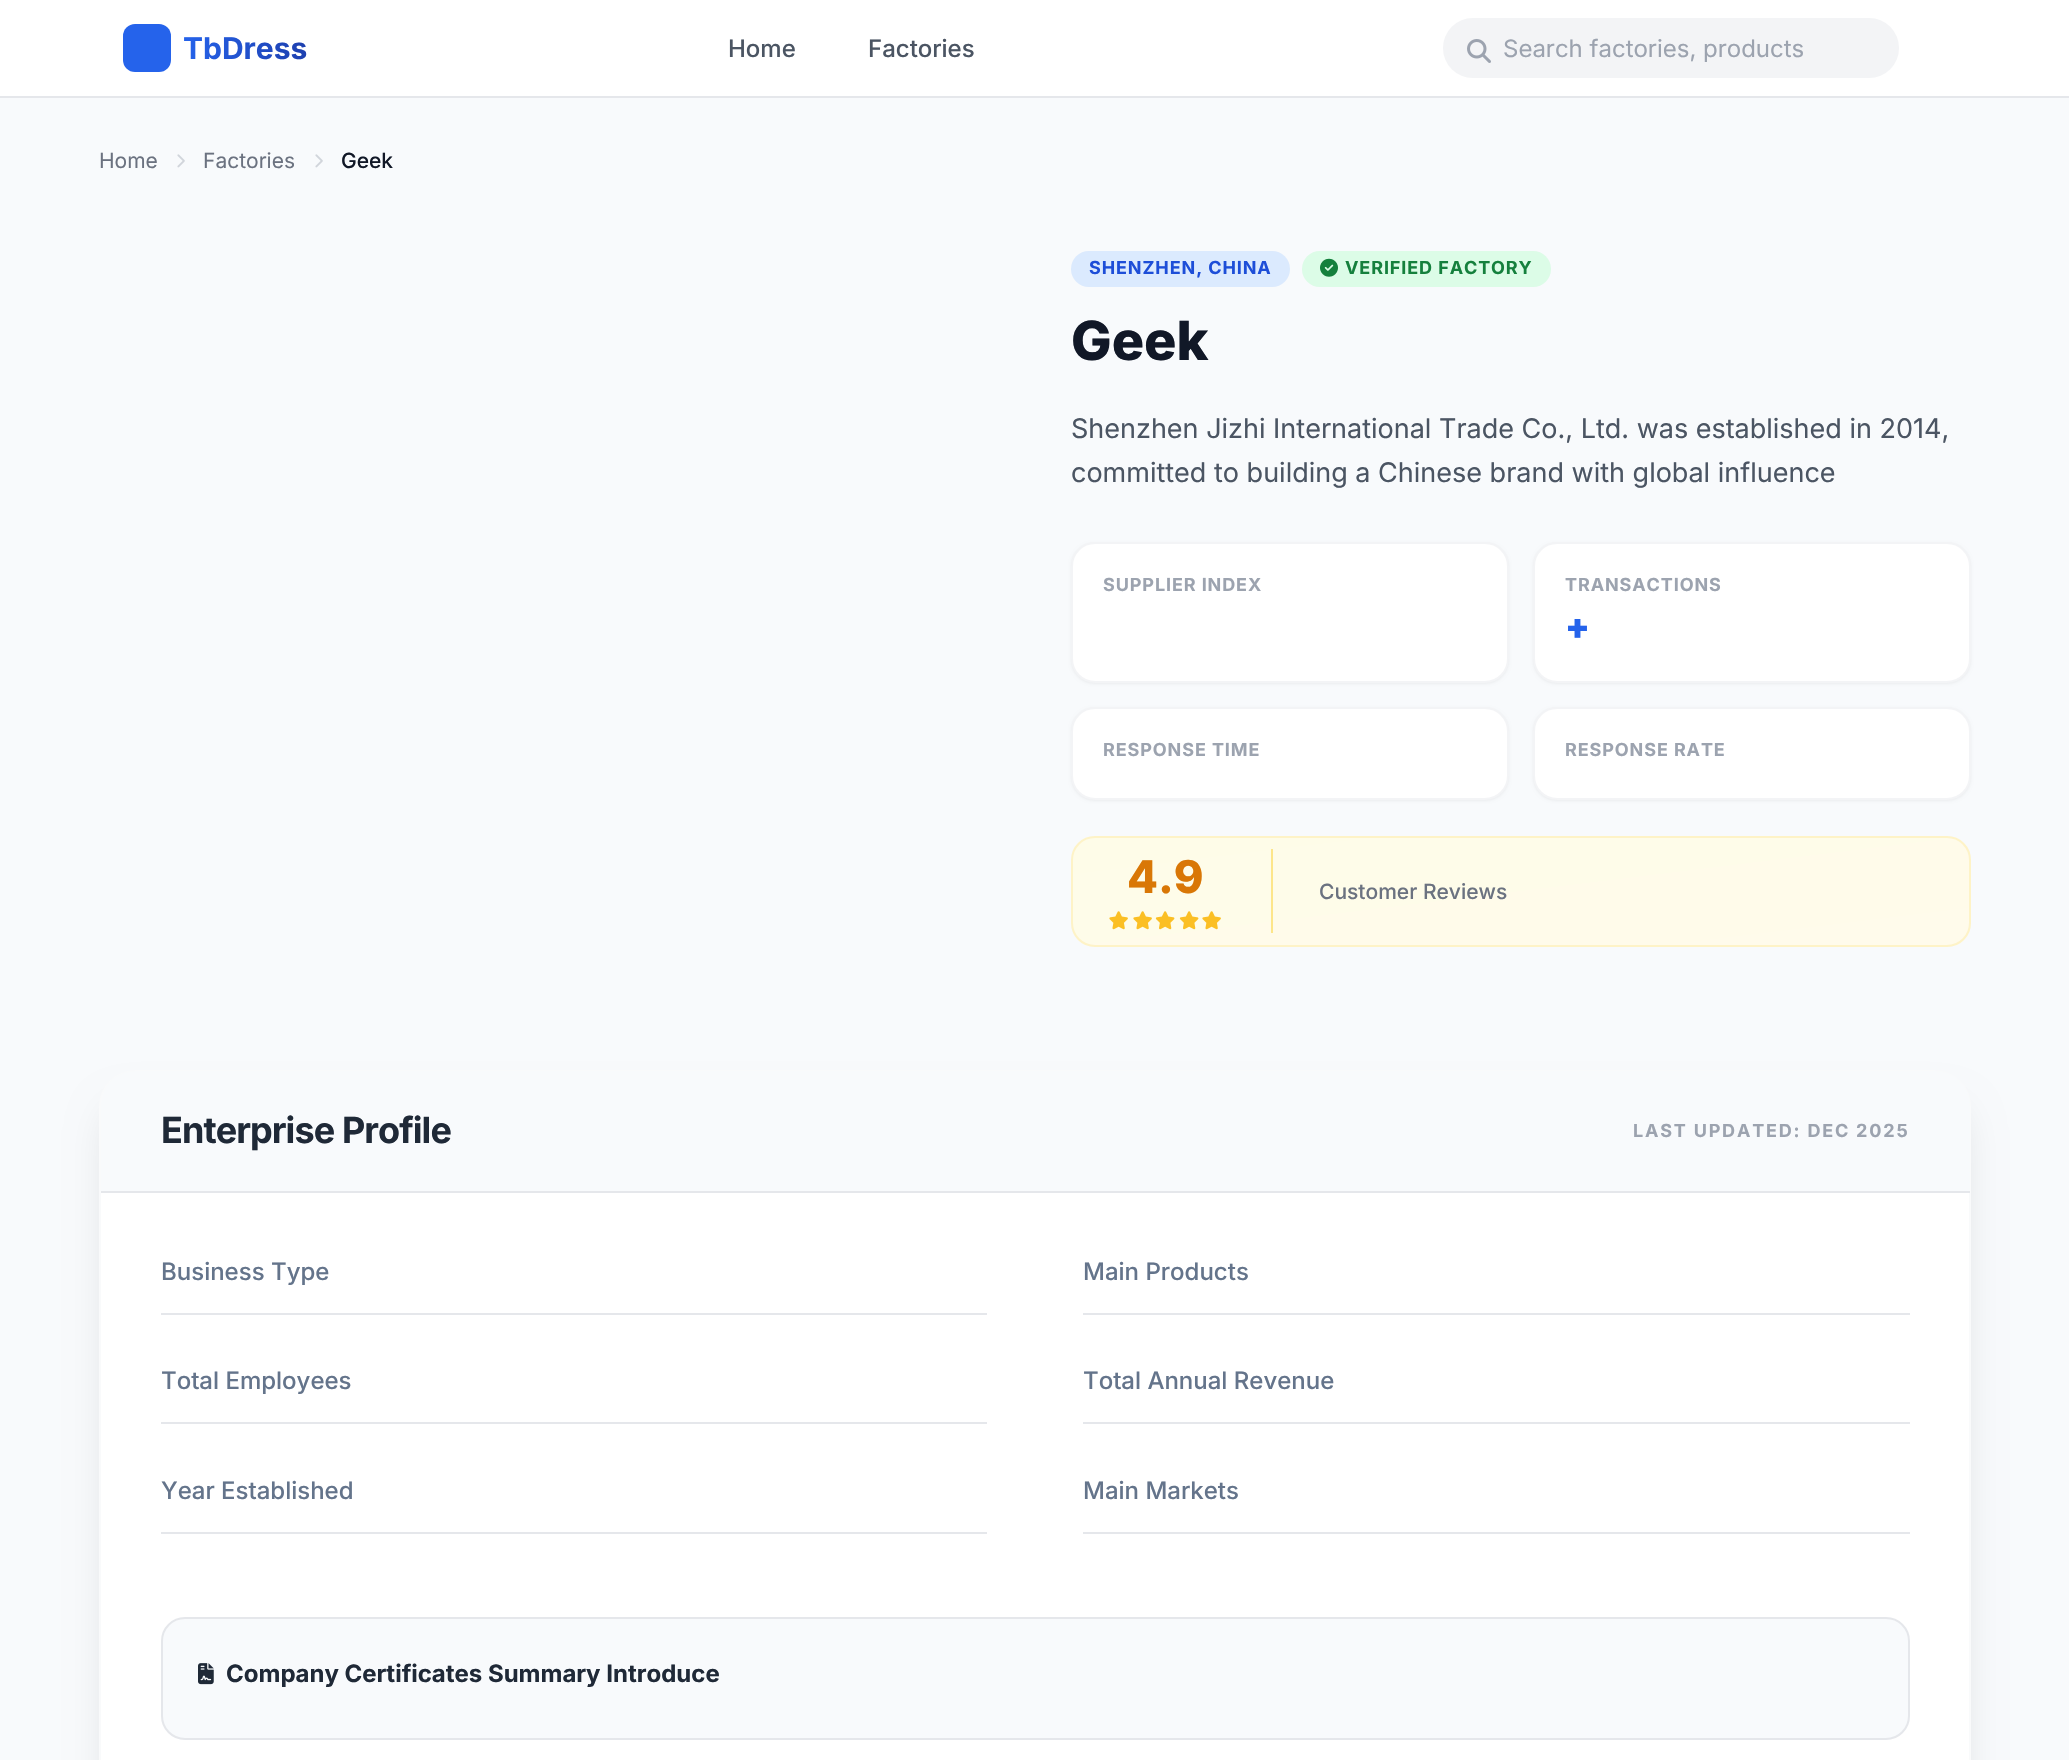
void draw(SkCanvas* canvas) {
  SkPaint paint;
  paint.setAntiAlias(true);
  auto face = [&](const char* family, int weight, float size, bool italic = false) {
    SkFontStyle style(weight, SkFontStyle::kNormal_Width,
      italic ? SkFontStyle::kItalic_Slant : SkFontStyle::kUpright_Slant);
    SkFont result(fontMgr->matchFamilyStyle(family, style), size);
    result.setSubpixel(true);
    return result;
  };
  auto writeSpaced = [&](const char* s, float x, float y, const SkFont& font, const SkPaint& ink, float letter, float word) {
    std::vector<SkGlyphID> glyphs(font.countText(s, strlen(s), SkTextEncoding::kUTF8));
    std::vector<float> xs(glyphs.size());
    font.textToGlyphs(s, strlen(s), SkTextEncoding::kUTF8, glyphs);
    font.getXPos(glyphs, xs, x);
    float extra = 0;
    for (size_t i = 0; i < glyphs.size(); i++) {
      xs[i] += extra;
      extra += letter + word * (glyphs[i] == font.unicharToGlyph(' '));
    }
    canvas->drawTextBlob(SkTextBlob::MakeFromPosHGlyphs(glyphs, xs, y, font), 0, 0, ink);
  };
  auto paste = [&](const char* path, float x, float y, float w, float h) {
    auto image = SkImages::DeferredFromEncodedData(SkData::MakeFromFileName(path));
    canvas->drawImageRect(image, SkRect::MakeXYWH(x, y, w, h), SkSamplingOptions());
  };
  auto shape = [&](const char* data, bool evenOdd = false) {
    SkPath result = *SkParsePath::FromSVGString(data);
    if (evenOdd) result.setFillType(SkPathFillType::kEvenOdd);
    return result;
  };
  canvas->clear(0xfff8fafc);
  paint.setColor(0xffffffff);
  canvas->drawRect(SkRect::MakeXYWH(0, 0, 2069, 96), paint);
  paint.setColor(0xffe5e7eb);
  canvas->drawRect(SkRect::MakeXYWH(0, 96, 2069, 2), paint);
  paint.setColor(0xff2563eb);
  canvas->drawRoundRect(SkRect::MakeXYWH(123, 24, 48, 48), 12, 12, paint);
  paint.setColor(0xfff3f4f6);
  canvas->drawRoundRect(SkRect::MakeXYWH(1443, 18, 456, 60), 30, 30, paint);
  paste("img/1.png", 1467, 39, 24, 24);
  paste("img/2.png", 177, 154, 8, 14);
  paste("img/2.png", 315, 154, 8, 14);
  paint.setColor(0xffdbeafe);
  canvas->drawRoundRect(SkRect::MakeXYWH(1071, 251, 219, 36), 18, 18, paint);
  paint.setColor(0xffdcfce7);
  canvas->drawRoundRect(SkRect::MakeXYWH(1302, 251, 249, 36), 18, 18, paint);
  paste("img/3.png", 1320, 258, 18, 19);
  paint.setColor(0x0d000000);
  paint.setMaskFilter(SkMaskFilter::MakeBlur(kNormal_SkBlurStyle, 1.5f));
  canvas->drawRoundRect(SkRect::MakeXYWH(1071, 543, 438, 141), 24, 24, paint);
  paint.setMaskFilter(nullptr);
  paint.setColor(0xffffffff);
  canvas->drawRoundRect(SkRect::MakeXYWH(1072, 543, 436, 139), 23, 23, paint);
  paint.setStroke(true);
  paint.setStrokeWidth(2);
  paint.setColor(0xfff3f4f6);
  canvas->drawRoundRect(SkRect::MakeXYWH(1072, 543, 436, 139), 23, 23, paint);
  paint.setStroke(false);
  paint.setColor(0x0d000000);
  paint.setMaskFilter(SkMaskFilter::MakeBlur(kNormal_SkBlurStyle, 1.5f));
  canvas->drawRoundRect(SkRect::MakeXYWH(1533, 543, 438, 141), 24, 24, paint);
  paint.setMaskFilter(nullptr);
  paint.setColor(0xffffffff);
  canvas->drawRoundRect(SkRect::MakeXYWH(1534, 543, 436, 139), 23, 23, paint);
  paint.setStroke(true);
  paint.setColor(0xfff3f4f6);
  canvas->drawRoundRect(SkRect::MakeXYWH(1534, 543, 436, 139), 23, 23, paint);
  paint.setStroke(false);
  paint.setColor(0x0d000000);
  paint.setMaskFilter(SkMaskFilter::MakeBlur(kNormal_SkBlurStyle, 1.5f));
  canvas->drawRoundRect(SkRect::MakeXYWH(1071, 708, 438, 93), 24, 24, paint);
  paint.setMaskFilter(nullptr);
  paint.setColor(0xffffffff);
  canvas->drawRoundRect(SkRect::MakeXYWH(1072, 708, 436, 91), 23, 23, paint);
  paint.setStroke(true);
  paint.setColor(0xfff3f4f6);
  canvas->drawRoundRect(SkRect::MakeXYWH(1072, 708, 436, 91), 23, 23, paint);
  paint.setStroke(false);
  paint.setColor(0x0d000000);
  paint.setMaskFilter(SkMaskFilter::MakeBlur(kNormal_SkBlurStyle, 1.5f));
  canvas->drawRoundRect(SkRect::MakeXYWH(1533, 708, 438, 93), 24, 24, paint);
  paint.setMaskFilter(nullptr);
  paint.setColor(0xffffffff);
  canvas->drawRoundRect(SkRect::MakeXYWH(1534, 708, 436, 91), 23, 23, paint);
  paint.setStroke(true);
  paint.setColor(0xfff3f4f6);
  canvas->drawRoundRect(SkRect::MakeXYWH(1534, 708, 436, 91), 23, 23, paint);
  canvas->save();
  canvas->clipPath(shape("M1095 836H1947C1960.5 836 1971 846.5 1971 860V923C1971 936.5 1960.5 947 1947 947H1095C1081.5 947 1071 936.5 1071 923V860C1071 846.5 1081.5 836 1095 836Z"), true);
  paint.setStroke(false);
  {
    const SkColor colors[] = {0xfffefce8, 0xfffffbeb};
    const float stops[] = {0, 1};
    const SkPoint ends[] = {{1508, 785}, {1534, 997}};
    paint.setShader(SkGradientShader::MakeLinear(ends, colors, stops, 2, SkTileMode::kClamp));
    paint.setAlpha(255);
  }
  canvas->drawRect(SkRect::MakeXYWH(1073, 837, 897, 108), paint);
  canvas->restore();
  paint.setStroke(true);
  paint.setShader(nullptr);
  paint.setColor(0xfffef3c7);
  canvas->drawRoundRect(SkRect::MakeXYWH(1072, 837, 898, 109), 23, 23, paint);
  paint.setStroke(false);
  paint.setColor(0xfffde68a);
  canvas->drawRect(SkRect::MakeXYWH(1271, 849, 2, 84), paint);
  paste("img/4.png", 1109, 911, 19, 19);
  paste("img/4.png", 1133, 911, 19, 19);
  paste("img/5.png", 1155, 911, 20, 19);
  paste("img/5.png", 1179, 911, 20, 19);
  paste("img/6.png", 1202, 911, 19, 19);
  paint.setColor(0x1a000000);
  paint.setMaskFilter(SkMaskFilter::MakeBlur(kNormal_SkBlurStyle, 19));
  canvas->drawRoundRect(SkRect::MakeXYWH(107, 1107, 1857, 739), 29, 29, paint);
  paint.setMaskFilter(nullptr);
  paint.setColor(0xffffffff);
  canvas->drawRoundRect(SkRect::MakeXYWH(100, 1071, 1870, 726), 35, 35, paint);
  paint.setStroke(true);
  paint.setColor(0xfff9fafb);
  canvas->drawRoundRect(SkRect::MakeXYWH(100, 1071, 1870, 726), 35, 35, paint);
  paint.setStroke(false);
  paint.setColor(0xfff8fafc);
  canvas->drawPath(shape("M136 1071H1935C1954.5 1071 1970 1086.5 1970 1106V1191H101V1106C101 1086.5 116.5 1071 136 1071Z"), paint);
  {
    const struct { float x, y, w, h; SkColor color; } items[] = {
      {101, 1191, 1869, 2, 0xffe5e7eb},
      {161, 1313, 826, 2, 0xffe5e7eb},
      {1083, 1313, 827, 2, 0xffe5e7eb},
      {161, 1422, 826, 2, 0xffe5e7eb},
      {1083, 1422, 827, 2, 0xffe5e7eb},
      {161, 1532, 826, 2, 0xffe5e7eb},
      {1083, 1532, 827, 2, 0xffe5e7eb},
    };
    for (auto [x, y, w, h, color] : items) {
      paint.setColor(color);
      canvas->drawRect(SkRect::MakeXYWH(x, y, w, h), paint);
    }
  }
  paint.setColor(0xfff8fafc);
  canvas->drawRoundRect(SkRect::MakeXYWH(162, 1618, 1747, 121), 23, 23, paint);
  paint.setStroke(true);
  paint.setColor(0xffe5e7eb);
  canvas->drawRoundRect(SkRect::MakeXYWH(162, 1618, 1747, 121), 23, 23, paint);
  paste("img/7.png", 198, 1663, 16, 22);
  auto f0 = face("Inter", 700, 30);
  paint.setStroke(false);
  {
    const SkColor colors[] = {0xff2563eb, 0xff1e40af};
    const float stops[] = {0, 1};
    const SkPoint ends[] = {{183, 48}, {307, 48}};
    paint.setShader(SkGradientShader::MakeLinear(ends, colors, stops, 2, SkTileMode::kClamp));
    paint.setAlpha(255);
  }
  canvas->drawString("TbDress", 183, 59, f0, paint);
  auto f1 = face("Inter", 500, 24);
  paint.setShader(nullptr);
  paint.setColor(0xff4b5563);
  canvas->drawString("Home", 728, 57, f1, paint);
  canvas->drawString("Factories", 868, 57, f1, paint);
  auto f2 = face("Inter", 400, 24);
  paint.setColor(0xff9ca3af);
  canvas->drawString("Search factories, products", 1503, 57, f2, paint);
  auto f3 = face("Inter", 400, 21);
  paint.setColor(0xff6b7280);
  canvas->drawString("Home", 99, 168, f3, paint);
  canvas->drawString("Factories", 203, 168, f3, paint);
  auto f4 = face("Inter", 500, 21);
  paint.setColor(0xff111827);
  canvas->drawString("Geek", 341, 168, f4, paint);
  auto f5 = face("Inter", 700, 18);
  paint.setColor(0xff1d4ed8);
  writeSpaced("SHENZHEN, CHINA", 1089, 274, f5, paint, 0.9f, 0);
  paint.setColor(0xff15803d);
  writeSpaced("VERIFIED FACTORY", 1345, 274, f5, paint, 0.9f, 0);
  auto f6 = face("Inter", 800, 54);
  paint.setColor(0xff111827);
  canvas->drawString("Geek", 1071, 360, f6, paint);
  auto f7 = face("Inter", 400, 27);
  paint.setColor(0xff4b5563);
  canvas->drawString("Shenzhen Jizhi International Trade Co., Ltd. was established in 2014,", 1071, 438, f7, paint);
  canvas->drawString("committed to building a Chinese brand with global influence", 1071, 482, f7, paint);
  paint.setColor(0xff9ca3af);
  writeSpaced("SUPPLIER INDEX", 1103, 591, f5, paint, 0.9f, 0);
  writeSpaced("TRANSACTIONS", 1565, 591, f5, paint, 0.9f, 0);
  auto f8 = face("Inter", 900, 36);
  paint.setColor(0xff2563eb);
  canvas->drawString("+", 1565, 639, f8, paint);
  paint.setColor(0xff9ca3af);
  writeSpaced("RESPONSE TIME", 1103, 756, f5, paint, 0.9f, 0);
  writeSpaced("RESPONSE RATE", 1565, 756, f5, paint, 0.9f, 0);
  auto f9 = face("Inter", 800, 45);
  paint.setColor(0xffd97706);
  canvas->drawString("4.9", 1127, 893, f9, paint);
  paint.setColor(0xff6b7280);
  canvas->drawString("Customer Reviews", 1319, 899, f4, paint);
  auto f10 = face("Inter", 700, 36);
  paint.setColor(0xff1f2937);
  writeSpaced("Enterprise Profile", 161, 1143, f10, paint, -0.9f, 0);
  paint.setColor(0xff9ca3af);
  writeSpaced("LAST UPDATED: DEC 2025", 1633, 1137, f5, paint, 1.8f, 0);
  paint.setColor(0xff64748b);
  {
    const struct { const char* s; float x, y; } items[] = {
      {"Business Type", 161, 1280},
      {"Main Products", 1083, 1280},
      {"Total Employees", 161, 1389},
      {"Total Annual Revenue", 1083, 1389},
      {"Year Established", 161, 1499},
      {"Main Markets", 1083, 1499},
    };
    for (auto [s, x, y] : items) {
      canvas->drawString(s, x, y, f1, paint);
    }
  }
  auto f11 = face("Inter", 700, 24);
  paint.setColor(0xff1f2937);
  canvas->drawString("Company Certificates Summary Introduce", 226, 1682, f11, paint);
}
